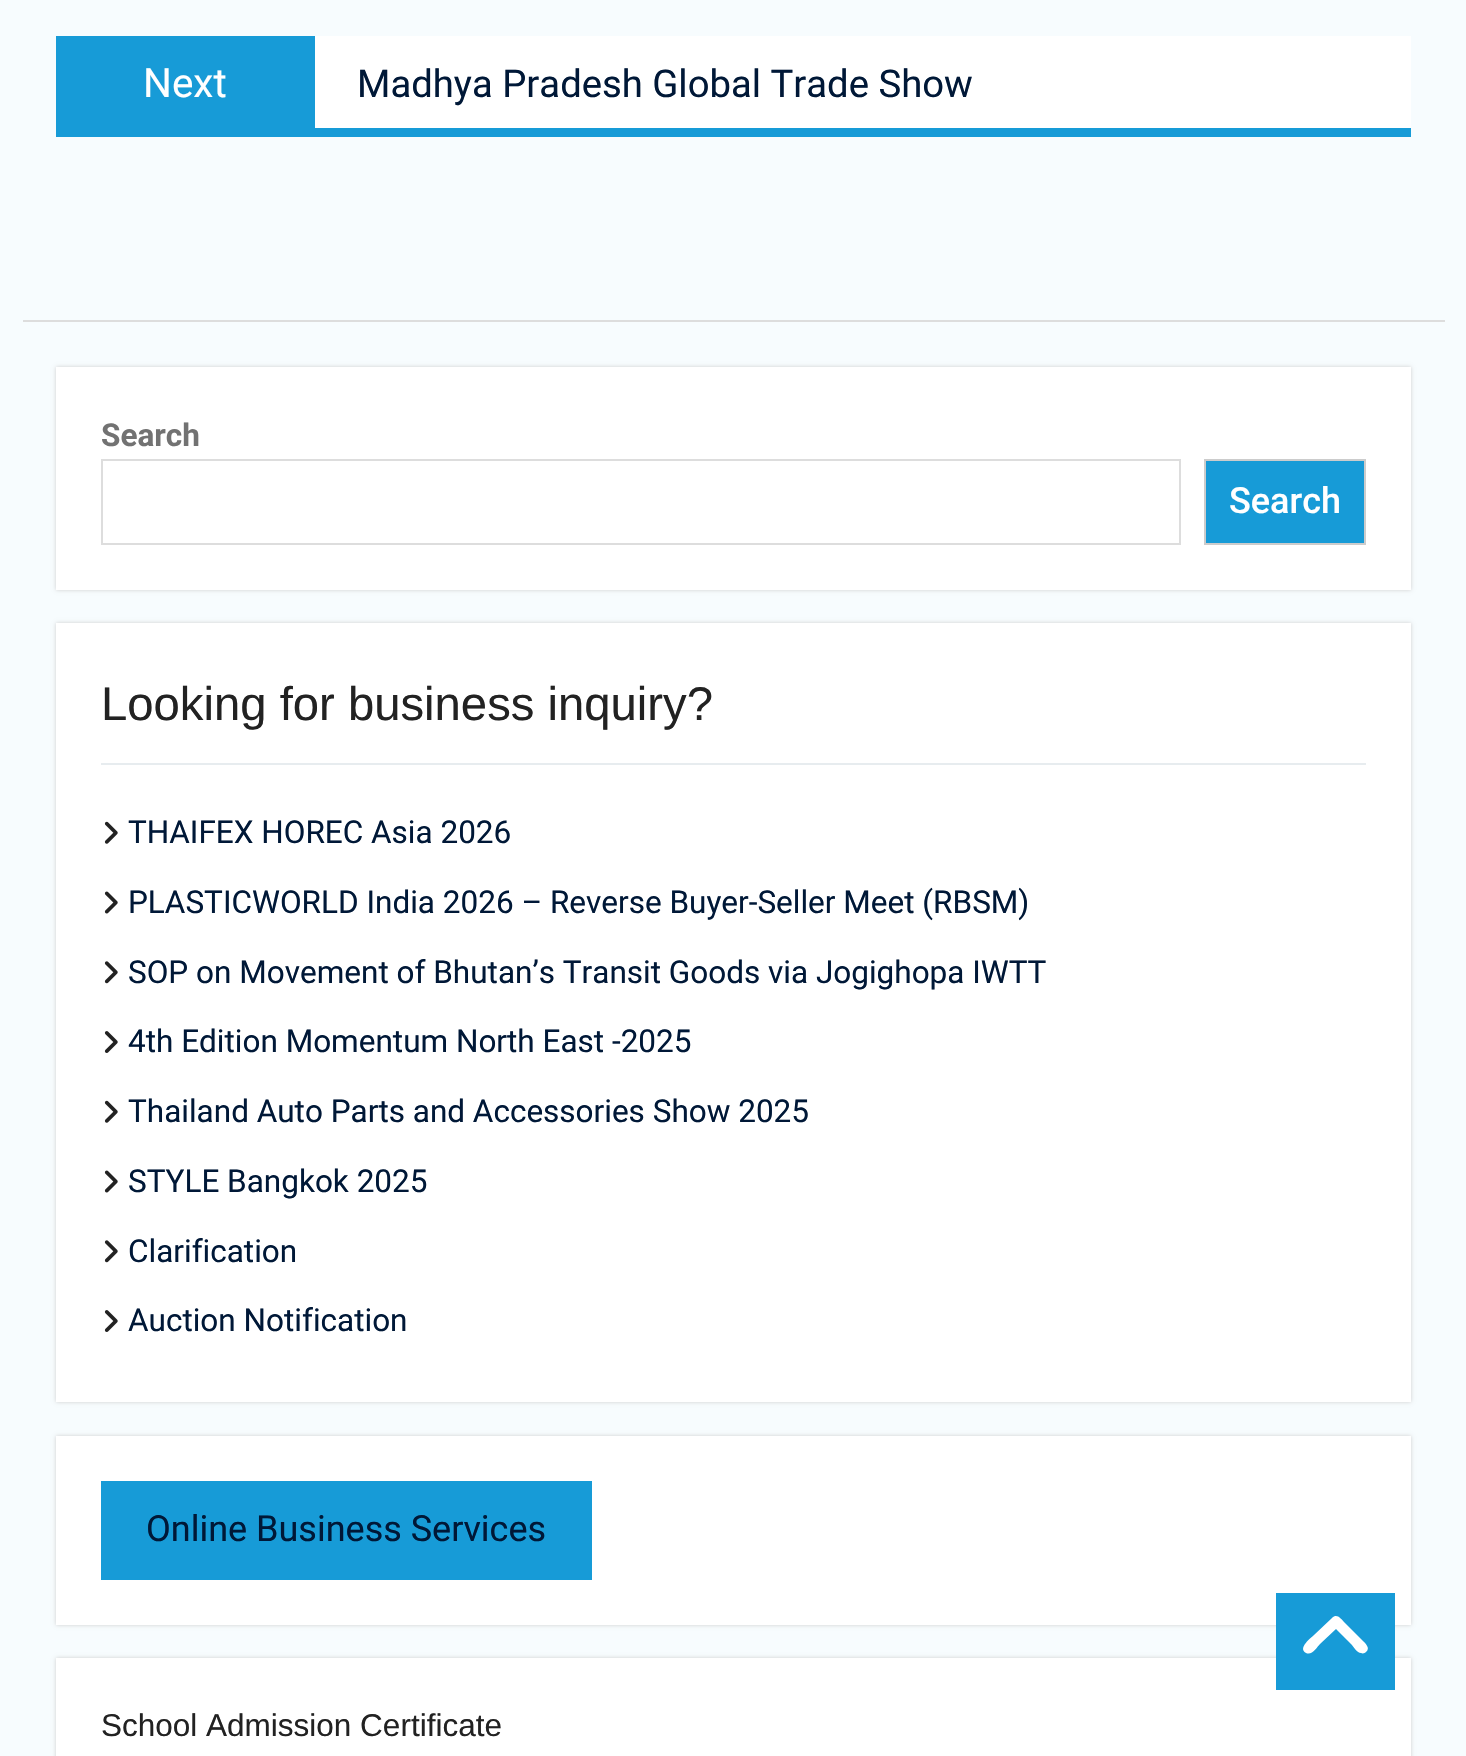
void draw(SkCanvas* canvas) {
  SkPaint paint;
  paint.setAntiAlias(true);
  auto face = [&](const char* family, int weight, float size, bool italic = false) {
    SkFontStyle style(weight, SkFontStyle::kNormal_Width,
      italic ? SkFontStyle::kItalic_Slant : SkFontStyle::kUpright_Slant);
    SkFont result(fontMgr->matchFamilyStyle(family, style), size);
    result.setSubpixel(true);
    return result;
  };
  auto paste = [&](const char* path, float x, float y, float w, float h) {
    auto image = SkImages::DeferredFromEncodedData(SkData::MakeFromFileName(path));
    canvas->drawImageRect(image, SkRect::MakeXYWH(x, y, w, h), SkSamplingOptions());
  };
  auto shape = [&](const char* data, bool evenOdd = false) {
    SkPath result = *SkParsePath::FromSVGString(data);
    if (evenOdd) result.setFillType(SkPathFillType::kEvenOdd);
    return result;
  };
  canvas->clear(0xfff7fcfe);
  {
    const struct { float x, y, w, h; SkColor color; } items[] = {
      {23, 320, 1422, 2, 0xffdddddd},
      {56, 128, 1355, 9, 0xff179bd7},
      {315, 36, 1096, 92, 0xffffffff},
      {56, 36, 259, 92, 0xff179bd7},
    };
    for (auto [x, y, w, h, color] : items) {
      paint.setColor(color);
      canvas->drawRect(SkRect::MakeXYWH(x, y, w, h), paint);
    }
  }
  paint.setColor(0xffcfcfcf);
  paint.setMaskFilter(SkMaskFilter::MakeBlur(kNormal_SkBlurStyle, 2));
  canvas->drawRect(SkRect::MakeXYWH(56, 367, 1355, 223), paint);
  paint.setMaskFilter(nullptr);
  paint.setColor(0xffffffff);
  canvas->drawRect(SkRect::MakeXYWH(56, 367, 1355, 223), paint);
  paint.setStroke(true);
  paint.setStrokeWidth(2);
  paint.setColor(0xffdddddd);
  canvas->drawRect(SkRect::MakeXYWH(102, 460, 1078, 84), paint);
  paint.setStroke(false);
  paint.setColor(0xff179bd7);
  canvas->drawRect(SkRect::MakeXYWH(1205, 460, 160, 84), paint);
  paint.setStroke(true);
  paint.setColor(0xffcccccc);
  canvas->drawRect(SkRect::MakeXYWH(1205, 460, 160, 84), paint);
  paint.setStroke(false);
  paint.setColor(0xffcfcfcf);
  paint.setMaskFilter(SkMaskFilter::MakeBlur(kNormal_SkBlurStyle, 2));
  canvas->drawRect(SkRect::MakeXYWH(56, 623, 1355, 779), paint);
  paint.setMaskFilter(nullptr);
  paint.setColor(0xffffffff);
  canvas->drawRect(SkRect::MakeXYWH(56, 623, 1355, 779), paint);
  paint.setColor(0xffe7ecef);
  canvas->drawRect(SkRect::MakeXYWH(101, 763, 1265, 2), paint);
  paste("img/1.png", 104, 821, 14, 23);
  paste("img/2.png", 104, 891, 14, 23);
  paste("img/3.png", 104, 961, 14, 23);
  paste("img/4.png", 104, 1031, 14, 22);
  paste("img/1.png", 104, 1100, 14, 23);
  paste("img/2.png", 104, 1170, 14, 23);
  paste("img/3.png", 104, 1240, 14, 23);
  paste("img/4.png", 104, 1310, 14, 22);
  paint.setColor(0xffcfcfcf);
  paint.setMaskFilter(SkMaskFilter::MakeBlur(kNormal_SkBlurStyle, 2));
  canvas->drawRect(SkRect::MakeXYWH(56, 1436, 1355, 189), paint);
  paint.setMaskFilter(nullptr);
  paint.setColor(0xffffffff);
  canvas->drawRect(SkRect::MakeXYWH(56, 1436, 1355, 189), paint);
  paint.setColor(0xff179bd7);
  canvas->drawRect(SkRect::MakeXYWH(101, 1481, 491, 99), paint);
  paint.setColor(0xffcfcfcf);
  paint.setMaskFilter(SkMaskFilter::MakeBlur(kNormal_SkBlurStyle, 2));
  canvas->drawRect(SkRect::MakeXYWH(56, 1658, 1355, 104), paint);
  paint.setMaskFilter(nullptr);
  paint.setColor(0xffffffff);
  canvas->drawRect(SkRect::MakeXYWH(56, 1658, 1355, 98), paint);
  paint.setColor(0xff179bd7);
  canvas->drawRect(SkRect::MakeXYWH(1276, 1593, 119, 97), paint);
  paint.setColor(0xffffffff);
  canvas->drawPath(shape("M1332 1618C1337 1613 1341 1619 1344 1622L1362 1640C1365 1643 1371 1648 1366 1652C1365 1653 1363 1654 1361 1653C1357 1653 1354 1647 1351 1644L1336 1629L1320 1644C1317 1647 1312 1656 1306 1653C1297 1648 1312 1637 1314 1635Z"), paint);
  auto f0 = face("Roboto", 400, 40.5f);
  canvas->drawString("Next", 143, 97, f0, paint);
  auto f1 = face("Roboto", 400, 38.25f);
  paint.setColor(0xff001837);
  canvas->drawString("Madhya Pradesh Global Trade Show", 357, 97, f1, paint);
  auto f2 = face("Roboto", 700, 31.5f);
  paint.setColor(0xff727272);
  canvas->drawString("Search", 101, 446, f2, paint);
  auto f3 = face("Roboto", 500, 36);
  paint.setColor(0xffffffff);
  canvas->drawString("Search", 1229, 513, f3, paint);
  auto f4 = face("Liberation Sans", 400, 47.25f);
  paint.setColor(0xff222222);
  canvas->drawString("Looking for business inquiry?", 101, 720, f4, paint);
  auto f5 = face("Roboto", 400, 31.5f);
  paint.setColor(0xff001837);
  {
    const struct { const char* s; float x, y; } items[] = {
      {"THAIFEX HOREC Asia 2026", 128, 843},
      {"PLASTICWORLD India 2026 – Reverse Buyer-Seller Meet (RBSM)", 128, 913},
      {"SOP on Movement of Bhutan’s Transit Goods via Jogighopa IWTT", 128, 983},
      {"4th Edition Momentum North East -2025", 128, 1052},
      {"Thailand Auto Parts and Accessories Show 2025", 128, 1122},
      {"STYLE Bangkok 2025", 128, 1192},
      {"Clarification", 128, 1262},
      {"Auction Notification", 128, 1331},
    };
    for (auto [s, x, y] : items) {
      canvas->drawString(s, x, y, f5, paint);
    }
  }
  auto f6 = face("Roboto", 400, 36);
  canvas->drawString("Online Business Services", 146, 1541, f6, paint);
  auto f7 = face("Liberation Sans", 400, 31.5f);
  paint.setColor(0xff222222);
  canvas->drawString("School Admission Certificate", 101, 1736, f7, paint);
}
